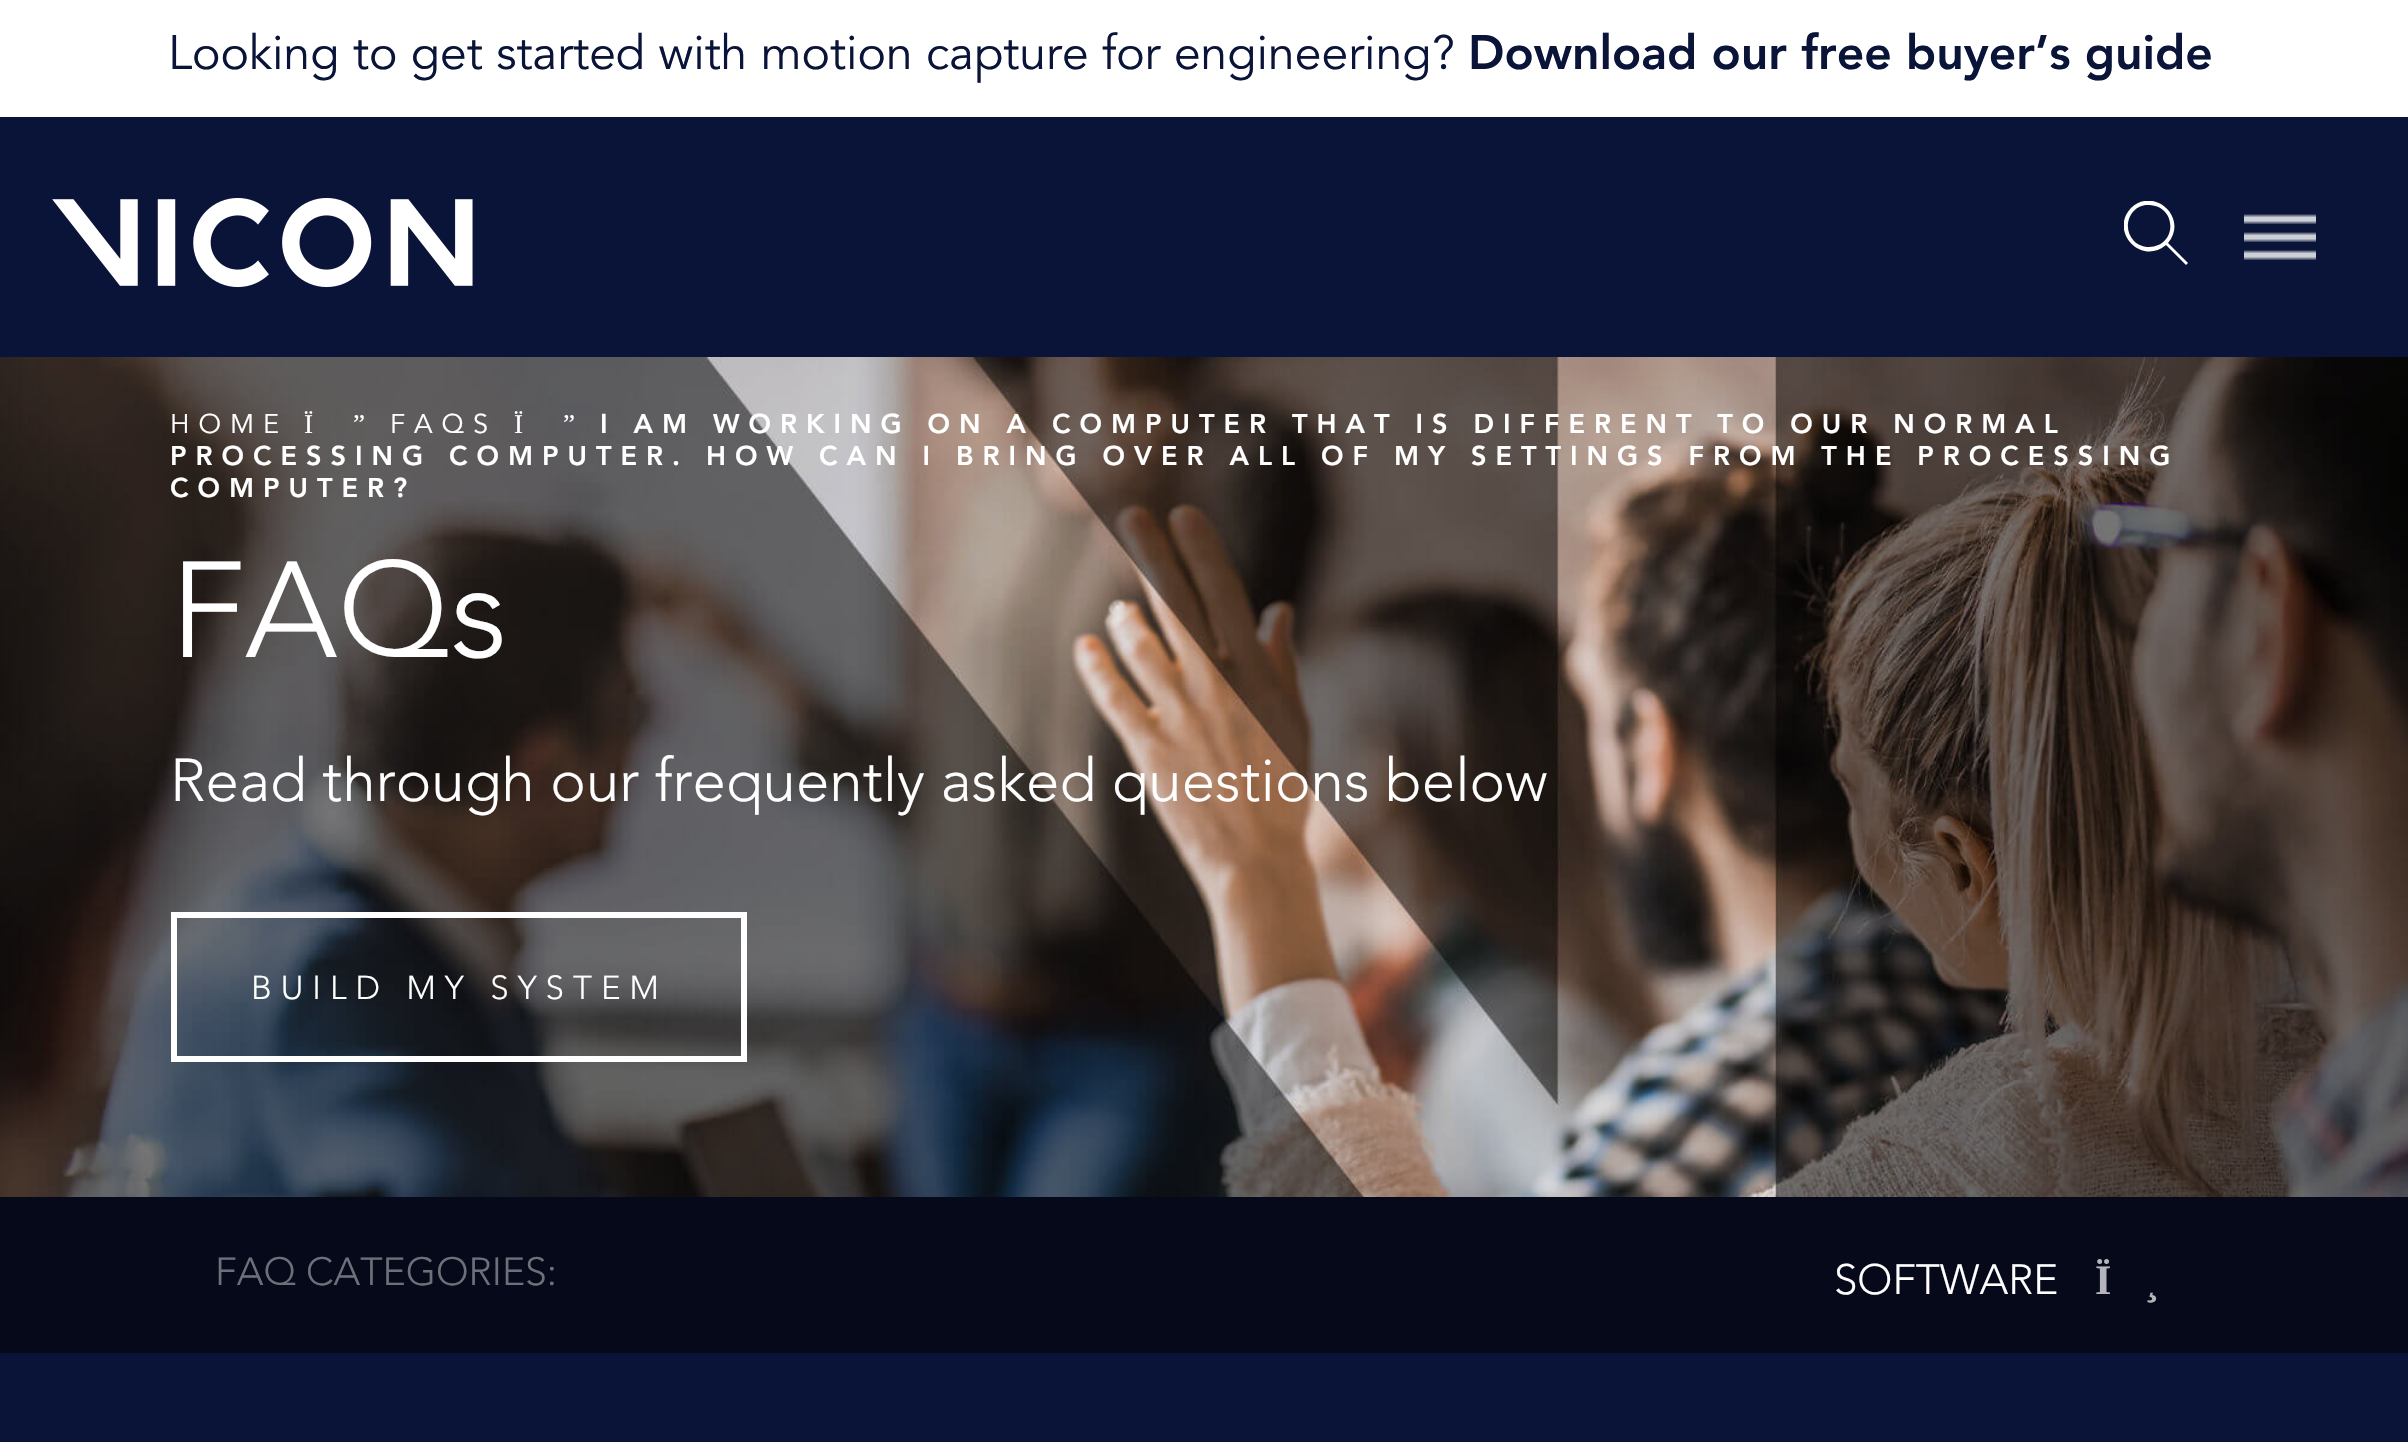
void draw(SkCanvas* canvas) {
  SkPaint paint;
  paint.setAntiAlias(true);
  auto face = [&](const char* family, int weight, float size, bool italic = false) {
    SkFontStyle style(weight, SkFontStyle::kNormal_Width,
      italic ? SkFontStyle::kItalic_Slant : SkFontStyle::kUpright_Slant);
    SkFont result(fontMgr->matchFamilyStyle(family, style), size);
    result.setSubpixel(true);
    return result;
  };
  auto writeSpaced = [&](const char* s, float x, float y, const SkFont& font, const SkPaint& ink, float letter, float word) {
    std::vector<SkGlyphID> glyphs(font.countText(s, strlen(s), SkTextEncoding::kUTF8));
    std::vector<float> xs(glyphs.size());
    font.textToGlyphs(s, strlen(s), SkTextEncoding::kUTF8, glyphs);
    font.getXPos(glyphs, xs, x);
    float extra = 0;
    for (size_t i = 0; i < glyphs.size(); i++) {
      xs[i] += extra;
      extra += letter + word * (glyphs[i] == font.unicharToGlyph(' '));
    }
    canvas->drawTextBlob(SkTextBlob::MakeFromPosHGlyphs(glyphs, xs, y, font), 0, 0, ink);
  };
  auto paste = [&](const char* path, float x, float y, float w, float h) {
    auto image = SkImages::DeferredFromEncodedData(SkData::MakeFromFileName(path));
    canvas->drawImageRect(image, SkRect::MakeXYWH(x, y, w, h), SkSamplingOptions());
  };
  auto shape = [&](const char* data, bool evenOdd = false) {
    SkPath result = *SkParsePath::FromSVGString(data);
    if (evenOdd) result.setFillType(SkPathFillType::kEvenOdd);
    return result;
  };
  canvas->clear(0xff0a1439);
  paint.setColor(0xffffffff);
  canvas->drawRect(SkRect::MakeXYWH(0, 0, 2408, 117), paint);
  paste("img/1.png", 52, 198, 421, 90);
  canvas->save();
  canvas->clipRect(SkRect::MakeXYWH(2124, 201, 66, 66));
  canvas->drawPath(shape("M2188 263L2168 243C2189 218 2154 186 2131 208C2109 231 2141 266 2166 245L2186 265ZM2149 247C2144 247 2138 245 2134 241C2121 228 2130 204 2149 205C2178 206 2177 247 2149 247Z"), paint);
  canvas->restore();
  paste("img/2.png", 2244, 214, 72, 46);
  paste("img/3.png", 0, 357, 2408, 840);
  paint.setStroke(true);
  paint.setStrokeWidth(6);
  canvas->drawRect(SkRect::MakeXYWH(174, 915, 570, 144), paint);
  paint.setStroke(false);
  paint.setColor(0xff050919);
  canvas->drawRect(SkRect::MakeXYWH(0, 1197, 2408, 156), paint);
  auto f0 = face("Avenir", 400, 48);
  paint.setColor(0xff0a1439);
  canvas->drawString("Looking to get started with motion capture for engineering?", 168, 69, f0, paint);
  auto f1 = face("Avenir", 900, 48);
  canvas->drawString("Download our free buyer’s guide", 1468, 69, f1, paint);
  auto f2 = face("Avenir", 400, 27);
  paint.setColor(0xffffffff);
  writeSpaced("HOME", 170, 433, f2, paint, 9, 0);
  auto f3 = face("Liberation Serif", 400, 27);
  writeSpaced("Ï", 304, 433, f3, paint, 9, 0);
  writeSpaced("”", 353, 433, f3, paint, 9, 0);
  writeSpaced("FAQS", 390, 433, f2, paint, 9, 0);
  writeSpaced("Ï", 514, 433, f3, paint, 9, 0);
  writeSpaced("”", 563, 433, f3, paint, 9, 0);
  auto f4 = face("Avenir", 900, 27);
  {
    const struct { const char* s; float x, y; } items[] = {
      {"I AM WORKING ON A COMPUTER THAT IS DIFFERENT TO OUR NORMAL", 600, 433},
      {"PROCESSING COMPUTER. HOW CAN I BRING OVER ALL OF MY SETTINGS FROM THE PROCESSING", 170, 465},
      {"COMPUTER?", 170, 497},
    };
    for (auto [s, x, y] : items) {
      writeSpaced(s, x, y, f4, paint, 9, 0);
    }
  }
  auto f5 = face("Avenir", 300, 135);
  canvas->drawString("FAQs", 170, 657, f5, paint);
  auto f6 = face("Avenir", 300, 60);
  canvas->drawString("Read through our frequently asked questions below", 170, 801, f6, paint);
  auto f7 = face("Avenir", 300, 33);
  writeSpaced("BUILD MY SYSTEM", 251, 999, f7, paint, 9, 0);
  auto f8 = face("Avenir", 300, 39);
  paint.setColor(0xff6d7079);
  canvas->drawString("FAQ CATEGORIES:", 215, 1285, f8, paint);
  auto f9 = face("Avenir", 300, 42);
  paint.setColor(0xffffffff);
  canvas->drawString("SOFTWARE", 1834, 1294, f9, paint);
  auto f10 = face("Liberation Serif", 700, 42);
  paint.setColor(0xffb4b5ba);
  canvas->drawString("Ï", 2095, 1294, f10, paint);
  canvas->drawString("¸", 2145, 1294, f10, paint);
}
